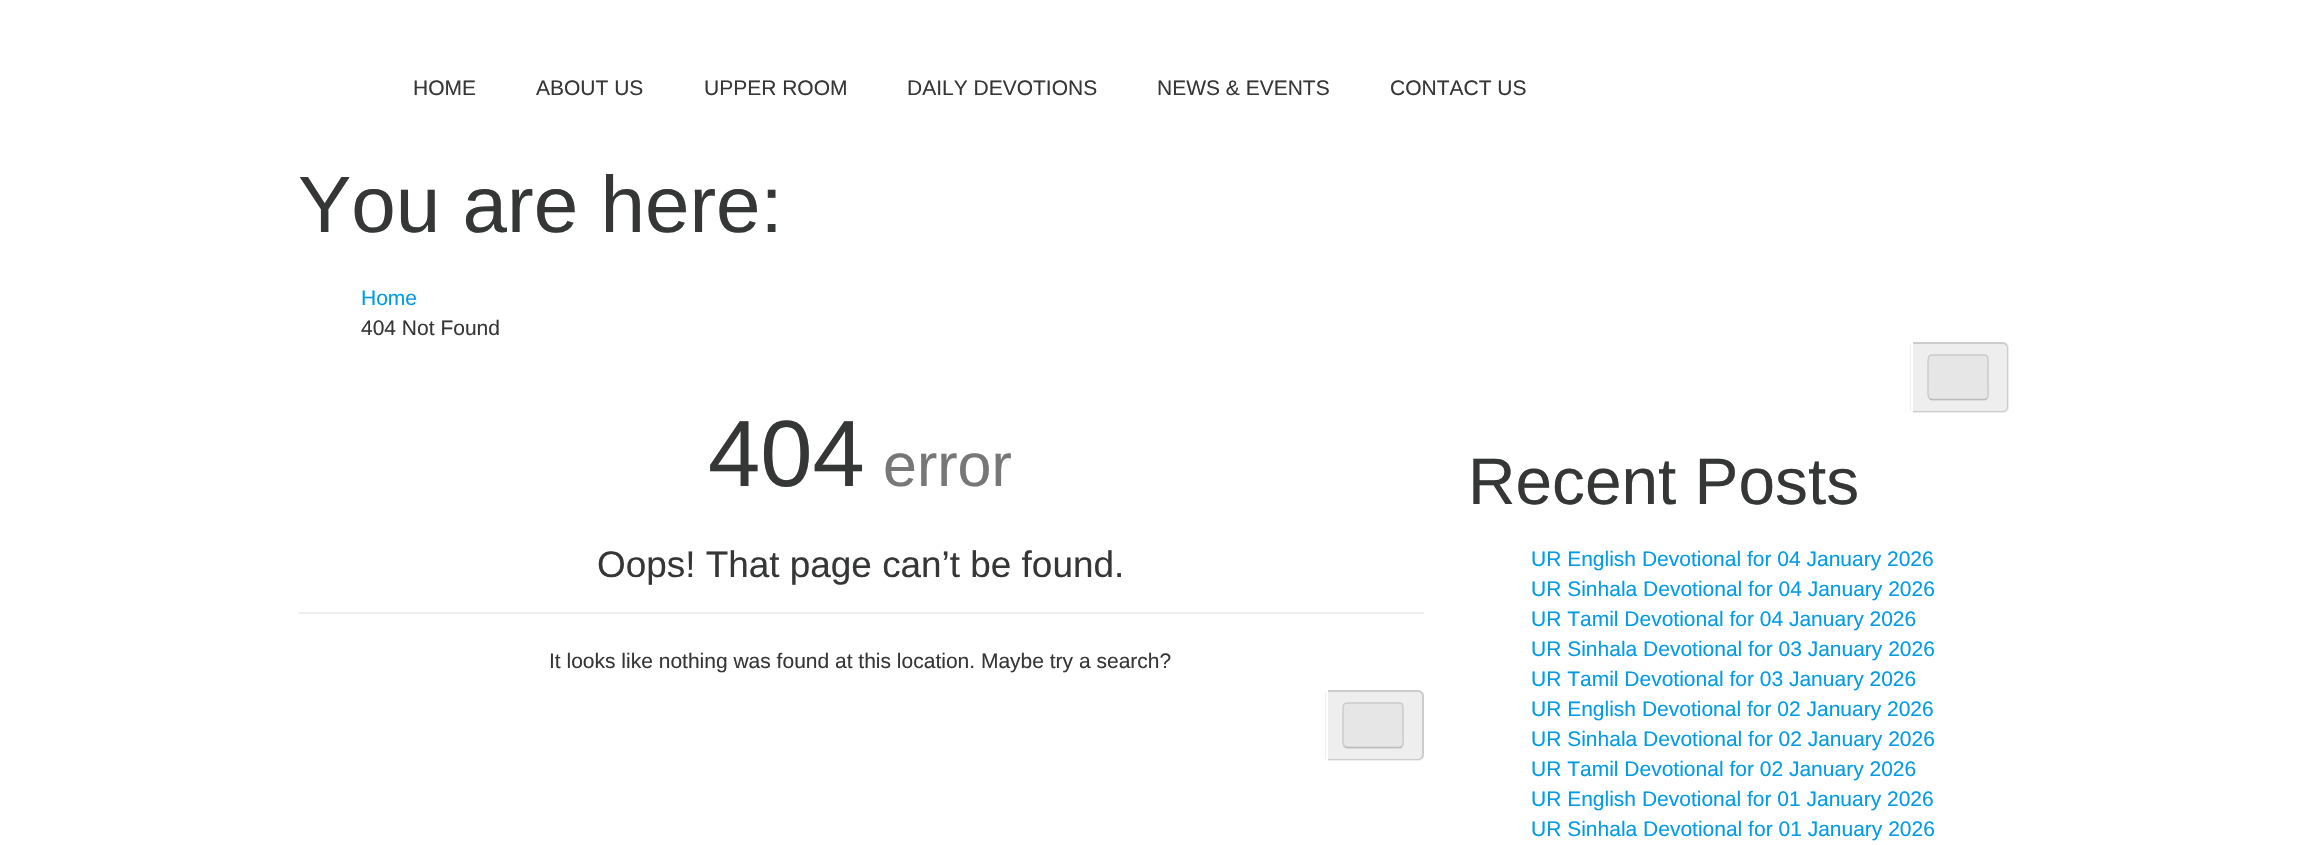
void draw(SkCanvas* canvas) {
  SkPaint paint;
  paint.setAntiAlias(true);
  auto face = [&](const char* family, int weight, float size, bool italic = false) {
    SkFontStyle style(weight, SkFontStyle::kNormal_Width,
      italic ? SkFontStyle::kItalic_Slant : SkFontStyle::kUpright_Slant);
    SkFont result(fontMgr->matchFamilyStyle(family, style), size);
    result.setSubpixel(true);
    return result;
  };
  auto shape = [&](const char* data, bool evenOdd = false) {
    SkPath result = *SkParsePath::FromSVGString(data);
    if (evenOdd) result.setFillType(SkPathFillType::kEvenOdd);
    return result;
  };
  canvas->clear(0xffffffff);
  paint.setColor(0xffeeeeee);
  canvas->drawRect(SkRect::MakeXYWH(299, 612, 1125, 2), paint);
  canvas->drawPath(shape("M1325 690H1418C1421.5 690 1424 692.5 1424 696V755C1424 758.5 1421.5 761 1418 761H1325Z"), paint);
  paint.setColor(0xffcccccc);
  canvas->drawPath(shape("M1324 690H1418C1421 690 1424 693 1424 696V754C1424 758 1421 760 1418 760H1324ZM1324 692H1418C1420 692 1422 694 1422 696V754C1422 757 1420 759 1418 759H1324Z", true), paint);
  paint.setStroke(true);
  paint.setStrokeWidth(2);
  paint.setColor(0xffffffff);
  canvas->drawRect(SkRect::MakeXYWH(300, 691, 1027, 69), paint);
  paint.setStroke(false);
  paint.setColor(0xffe6e6e6);
  canvas->drawRoundRect(SkRect::MakeXYWH(1343, 702, 61, 47), 5, 5, paint);
  paint.setStroke(true);
  paint.setStrokeWidth(1.5f);
  paint.setColor(0xffbbbbbb);
  canvas->drawPath(shape("M1402 746.5L1400 747.5H1346.5L1344.5 746.5"), paint);
  paint.setColor(0xffcccccc);
  canvas->drawPath(shape("M1344.5 746.5C1342.5 744.5 1343 739.5 1343 738V713C1343 701 1343.5 703 1356 703H1391C1403 703 1403 701 1403 713V738C1403 739.5 1404 744.5 1402 746.5"), paint);
  paint.setStroke(false);
  paint.setColor(0xffeeeeee);
  canvas->drawPath(shape("M1910 342H2003C2006.5 342 2009 344.5 2009 348V407C2009 410.5 2006.5 413 2003 413H1910Z"), paint);
  paint.setColor(0xffcccccc);
  canvas->drawPath(shape("M1910 342H2002C2006 342 2008 345 2008 348V406C2008 410 2006 412 2002 412H1910ZM1910 344H2002C2005 344 2007 346 2007 348V406C2007 409 2005 411 2002 411H1910Z", true), paint);
  paint.setStroke(true);
  paint.setStrokeWidth(2);
  paint.setColor(0xffffffff);
  canvas->drawRect(SkRect::MakeXYWH(1470, 343, 442, 69), paint);
  paint.setStroke(false);
  paint.setColor(0xffe6e6e6);
  canvas->drawRoundRect(SkRect::MakeXYWH(1928, 354, 61, 47), 5, 5, paint);
  paint.setStroke(true);
  paint.setStrokeWidth(1.5f);
  paint.setColor(0xffbbbbbb);
  canvas->drawPath(shape("M1987 398.5L1985 399.5H1931.5L1929.5 398.5"), paint);
  paint.setColor(0xffcccccc);
  canvas->drawPath(shape("M1929.5 398.5C1927.5 396.5 1928 391.5 1928 390V365C1928 353 1928.5 355 1941 355H1976C1988 355 1988 353 1988 365V390C1988 391.5 1989 396.5 1987 398.5"), paint);
  auto f0 = face("Liberation Sans", 400, 21);
  paint.setStroke(false);
  paint.setColor(0xff353636);
  {
    const struct { const char* s; float x, y; } items[] = {
      {"HOME", 413, 95},
      {"ABOUT US", 536, 95},
      {"UPPER ROOM", 704, 95},
      {"DAILY DEVOTIONS", 907, 95},
      {"NEWS & EVENTS", 1157, 95},
      {"CONTACT US", 1390, 95},
    };
    for (auto [s, x, y] : items) {
      canvas->drawString(s, x, y, f0, paint);
    }
  }
  auto f1 = face("Liberation Sans", 400, 80);
  canvas->drawString("You are here:", 298, 232, f1, paint);
  paint.setColor(0xff039be5);
  canvas->drawString("Home", 361, 305, f0, paint);
  paint.setColor(0xff353636);
  canvas->drawString("404 Not Found", 361, 335, f0, paint);
  auto f2 = face("Liberation Sans", 400, 94);
  canvas->drawString("404", 708, 486, f2, paint);
  auto f3 = face("Liberation Sans", 400, 61);
  paint.setColor(0xff777777);
  canvas->drawString("error", 883, 486, f3, paint);
  auto f4 = face("Liberation Sans", 400, 36.9f);
  paint.setColor(0xff353636);
  canvas->drawString("Oops! That page can’t be found.", 597, 577, f4, paint);
  canvas->drawString("It looks like nothing was found at this location. Maybe try a search?", 549, 668, f0, paint);
  auto f5 = face("Liberation Sans", 400, 65.75f);
  canvas->drawString("Recent Posts", 1468, 504, f5, paint);
  paint.setColor(0xff039be5);
  {
    const struct { const char* s; float x, y; } items[] = {
      {"UR English Devotional for 04 January 2026", 1531, 566},
      {"UR Sinhala Devotional for 04 January 2026", 1531, 596},
      {"UR Tamil Devotional for 04 January 2026", 1531, 626},
      {"UR Sinhala Devotional for 03 January 2026", 1531, 656},
      {"UR Tamil Devotional for 03 January 2026", 1531, 686},
      {"UR English Devotional for 02 January 2026", 1531, 716},
      {"UR Sinhala Devotional for 02 January 2026", 1531, 746},
      {"UR Tamil Devotional for 02 January 2026", 1531, 776},
      {"UR English Devotional for 01 January 2026", 1531, 806},
      {"UR Sinhala Devotional for 01 January 2026", 1531, 836},
    };
    for (auto [s, x, y] : items) {
      canvas->drawString(s, x, y, f0, paint);
    }
  }
}
